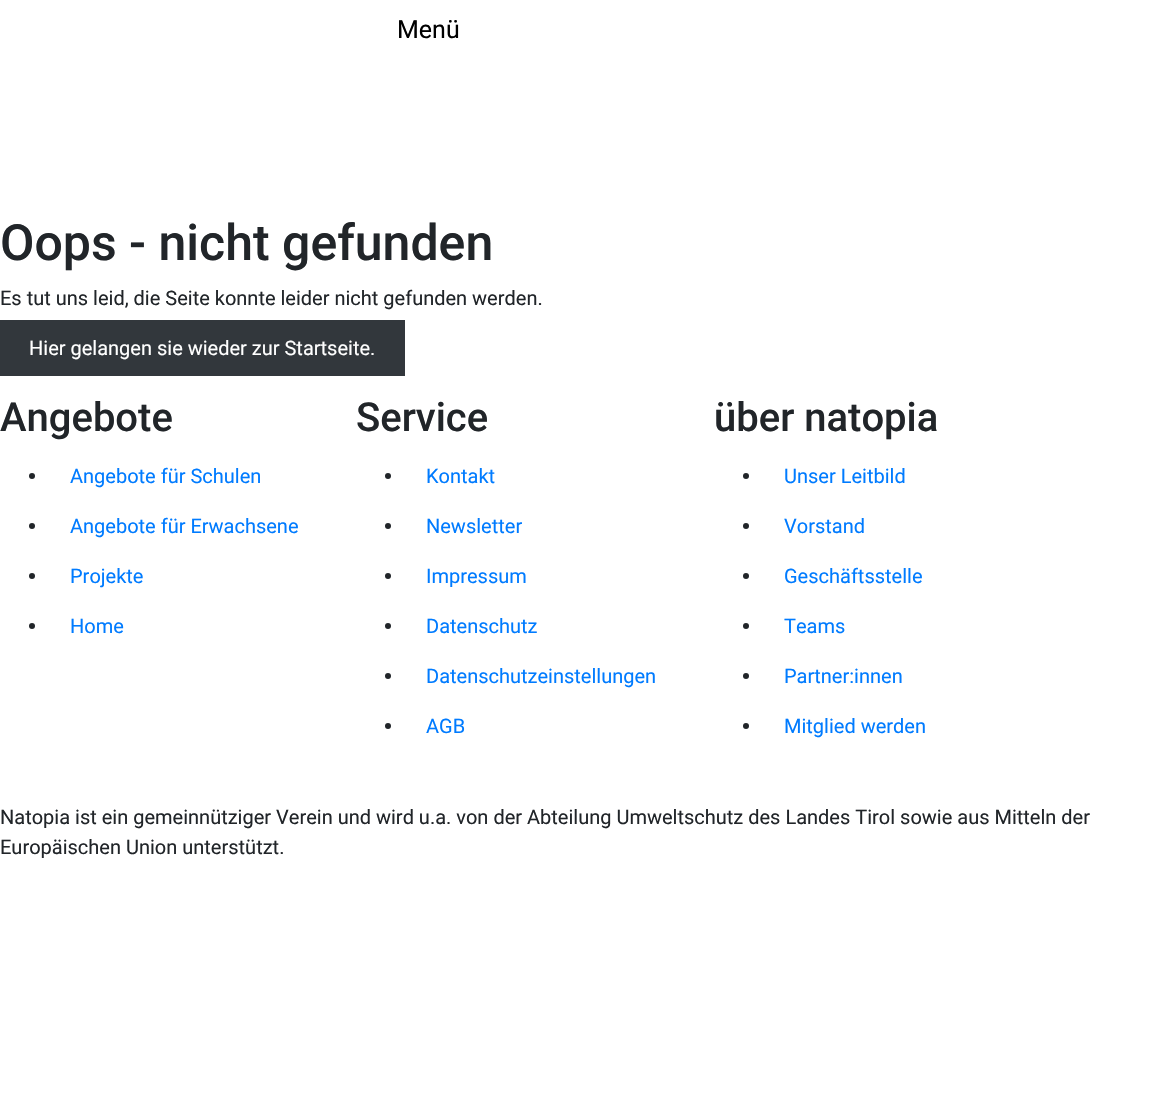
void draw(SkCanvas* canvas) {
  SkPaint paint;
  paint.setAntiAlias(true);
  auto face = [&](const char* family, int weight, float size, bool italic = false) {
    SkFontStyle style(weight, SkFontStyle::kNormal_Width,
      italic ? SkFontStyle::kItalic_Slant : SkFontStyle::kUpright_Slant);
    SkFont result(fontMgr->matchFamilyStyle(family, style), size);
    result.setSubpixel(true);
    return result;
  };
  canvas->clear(0xffffffff);
  paint.setColor(0xff32373c);
  canvas->drawRect(SkRect::MakeXYWH(0, 320, 405, 56), paint);
  paint.setColor(0xff212529);
  canvas->drawCircle(32, 476, 3, paint);
  canvas->drawCircle(32, 526, 3, paint);
  canvas->drawCircle(32, 576, 3, paint);
  canvas->drawCircle(32, 626, 3, paint);
  canvas->drawCircle(388, 476, 3, paint);
  canvas->drawCircle(388, 526, 3, paint);
  canvas->drawCircle(388, 576, 3, paint);
  canvas->drawCircle(388, 626, 3, paint);
  canvas->drawCircle(388, 676, 3, paint);
  canvas->drawCircle(388, 726, 3, paint);
  canvas->drawCircle(746, 476, 3, paint);
  canvas->drawCircle(746, 526, 3, paint);
  canvas->drawCircle(746, 576, 3, paint);
  canvas->drawCircle(746, 626, 3, paint);
  canvas->drawCircle(746, 676, 3, paint);
  canvas->drawCircle(746, 726, 3, paint);
  auto f0 = face("Roboto", 400, 25);
  paint.setColor(0xff000000);
  canvas->drawString("Menü", 397, 38, f0, paint);
  auto f1 = face("Roboto", 500, 50);
  paint.setColor(0xff212529);
  canvas->drawString("Oops - nicht gefunden", 0, 260, f1, paint);
  auto f2 = face("Roboto", 400, 20);
  canvas->drawString("Es tut uns leid, die Seite konnte leider nicht gefunden werden.", 0, 305, f2, paint);
  paint.setColor(0xffffffff);
  canvas->drawString("Hier gelangen sie wieder zur Startseite.", 29, 355, f2, paint);
  auto f3 = face("Roboto", 500, 40);
  paint.setColor(0xff212529);
  canvas->drawString("Angebote", 0, 431, f3, paint);
  paint.setColor(0xff007bff);
  {
    const struct { const char* s; float x, y; } items[] = {
      {"Angebote für Schulen", 70, 483},
      {"Angebote für Erwachsene", 70, 533},
      {"Projekte", 70, 583},
      {"Home", 70, 633},
    };
    for (auto [s, x, y] : items) {
      canvas->drawString(s, x, y, f2, paint);
    }
  }
  paint.setColor(0xff212529);
  canvas->drawString("Service", 356, 431, f3, paint);
  paint.setColor(0xff007bff);
  {
    const struct { const char* s; float x, y; } items[] = {
      {"Kontakt", 426, 483},
      {"Newsletter", 426, 533},
      {"Impressum", 426, 583},
      {"Datenschutz", 426, 633},
      {"Datenschutzeinstellungen", 426, 683},
      {"AGB", 426, 733},
    };
    for (auto [s, x, y] : items) {
      canvas->drawString(s, x, y, f2, paint);
    }
  }
  paint.setColor(0xff212529);
  canvas->drawString("über natopia", 714, 431, f3, paint);
  paint.setColor(0xff007bff);
  {
    const struct { const char* s; float x, y; } items[] = {
      {"Unser Leitbild", 784, 483},
      {"Vorstand", 784, 533},
      {"Geschäftsstelle", 784, 583},
      {"Teams", 784, 633},
      {"Partner:innen", 784, 683},
      {"Mitglied werden", 784, 733},
    };
    for (auto [s, x, y] : items) {
      canvas->drawString(s, x, y, f2, paint);
    }
  }
  paint.setColor(0xff212529);
  canvas->drawString("Natopia ist ein gemeinnütziger Verein und wird u.a. von der Abteilung Umweltschutz des Landes Tirol sowie aus Mitteln der", 0, 824, f2, paint);
  canvas->drawString("Europäischen Union unterstützt.", 0, 854, f2, paint);
}
